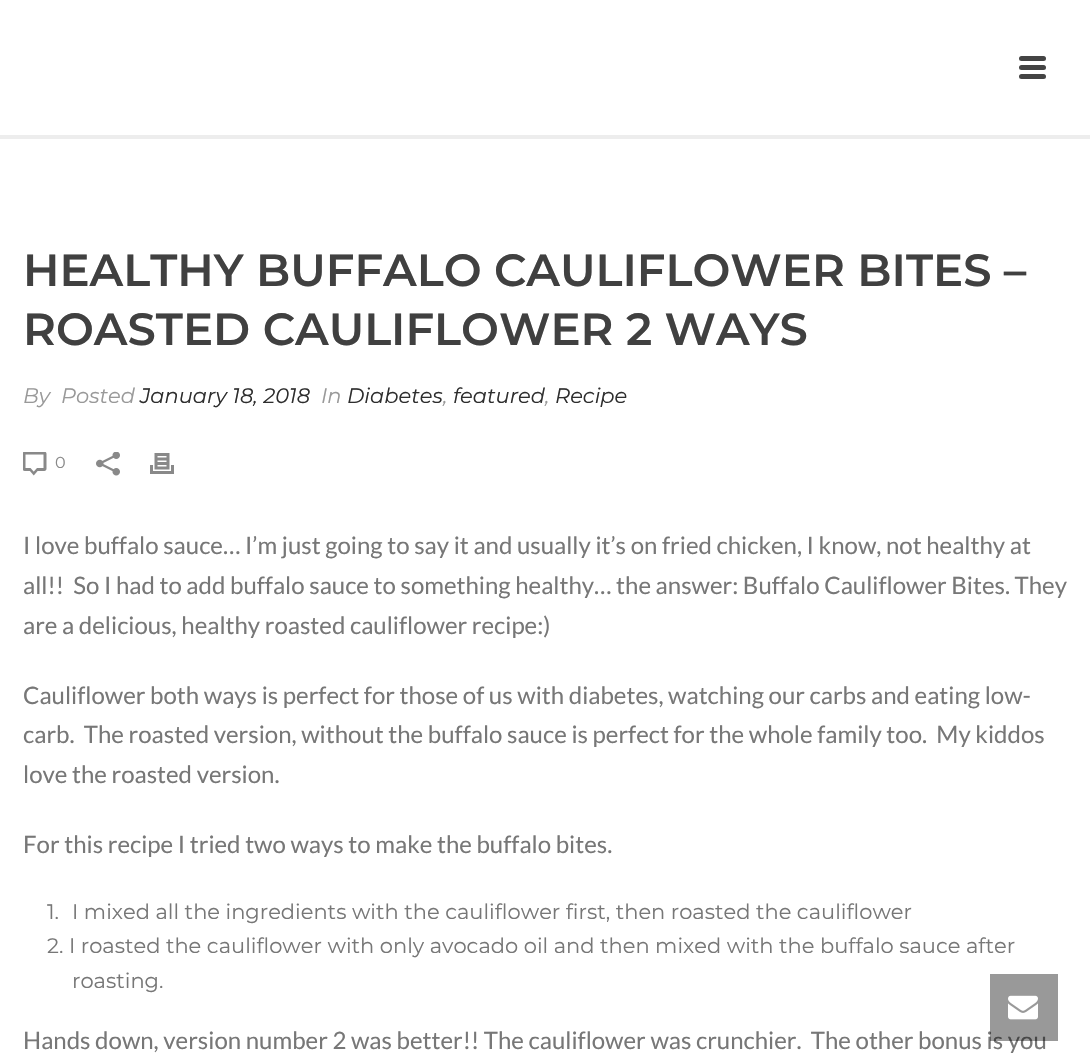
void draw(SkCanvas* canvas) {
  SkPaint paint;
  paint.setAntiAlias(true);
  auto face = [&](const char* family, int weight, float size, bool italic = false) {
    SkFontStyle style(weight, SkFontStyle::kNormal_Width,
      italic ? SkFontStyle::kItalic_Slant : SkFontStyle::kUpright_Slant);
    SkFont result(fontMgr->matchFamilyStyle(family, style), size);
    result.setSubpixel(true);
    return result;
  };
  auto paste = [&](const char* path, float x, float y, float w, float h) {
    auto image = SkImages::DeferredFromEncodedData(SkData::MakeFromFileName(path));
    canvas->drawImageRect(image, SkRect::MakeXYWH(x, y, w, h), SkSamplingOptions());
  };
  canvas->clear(0xffffffff);
  paint.setColor(0xffededed);
  canvas->drawRect(SkRect::MakeXYWH(0, 135, 1090, 4), paint);
  paint.setColor(0xff444444);
  canvas->drawRoundRect(SkRect::MakeXYWH(1019, 56, 27, 5), 2.5f, 2.5f, paint);
  canvas->drawRoundRect(SkRect::MakeXYWH(1019, 65, 27, 5), 2.5f, 2.5f, paint);
  canvas->drawRoundRect(SkRect::MakeXYWH(1019, 74, 27, 5), 2.5f, 2.5f, paint);
  paste("img/1.png", 23, 452, 24, 24);
  paste("img/2.png", 96, 452, 24, 24);
  paste("img/3.png", 150, 453, 24, 21);
  auto f0 = face("Montserrat", 600, 45);
  paint.setColor(0xff404040);
  canvas->drawString("HEALTHY BUFFALO CAULIFLOWER BITES –", 23, 286, f0, paint);
  canvas->drawString("ROASTED CAULIFLOWER 2 WAYS", 23, 345, f0, paint);
  auto f1 = face("Montserrat", 400, 21, true);
  paint.setColor(0xff999999);
  canvas->drawString("By", 23, 403, f1, paint);
  canvas->drawString("Posted", 61, 403, f1, paint);
  paint.setColor(0xff2e2e2e);
  canvas->drawString("January 18, 2018", 140, 403, f1, paint);
  paint.setColor(0xff999999);
  canvas->drawString("In", 321, 403, f1, paint);
  paint.setColor(0xff2e2e2e);
  canvas->drawString("Diabetes", 347, 403, f1, paint);
  paint.setColor(0xff999999);
  canvas->drawString(",", 443, 403, f1, paint);
  paint.setColor(0xff2e2e2e);
  canvas->drawString("featured", 453, 403, f1, paint);
  paint.setColor(0xff999999);
  canvas->drawString(",", 545, 403, f1, paint);
  paint.setColor(0xff2e2e2e);
  canvas->drawString("Recipe", 555, 403, f1, paint);
  auto f2 = face("Montserrat", 400, 16);
  paint.setColor(0xff898989);
  canvas->drawString("0", 55, 468, f2, paint);
  auto f3 = face("Lato", 400, 24);
  paint.setColor(0xff777777);
  {
    const struct { const char* s; float x, y; } items[] = {
      {"I love buffalo sauce… I’m just going to say it and usually it’s on fried chicken, I know, not healthy at", 23, 554},
      {"all!!  So I had to add buffalo sauce to something healthy… the answer: Buffalo Cauliflower Bites. They", 23, 594},
      {"are a delicious, healthy roasted cauliflower recipe:)", 23, 634},
      {"Cauliflower both ways is perfect for those of us with diabetes, watching our carbs and eating low-", 23, 704},
      {"carb.  The roasted version, without the buffalo sauce is perfect for the whole family too.  My kiddos", 23, 743},
      {"love the roasted version.", 23, 783},
      {"For this recipe I tried two ways to make the buffalo bites.", 23, 853},
    };
    for (auto [s, x, y] : items) {
      canvas->drawString(s, x, y, f3, paint);
    }
  }
  auto f4 = face("Montserrat", 400, 21);
  {
    const struct { const char* s; float x, y; } items[] = {
      {"1.", 47, 919},
      {"I mixed all the ingredients with the cauliflower first, then roasted the cauliflower", 72, 919},
      {"2. I roasted the cauliflower with only avocado oil and then mixed with the buffalo sauce after", 47, 953},
      {"roasting.", 72, 988},
    };
    for (auto [s, x, y] : items) {
      canvas->drawString(s, x, y, f4, paint);
    }
  }
  canvas->drawString("Hands down, version number 2 was better!! The cauliflower was crunchier.  The other bonus is you", 23, 1049, f3, paint);
  paint.setColor(0x66000000);
  canvas->drawRect(SkRect::MakeXYWH(990, 974, 68, 67), paint);
  paste("img/4.png", 1008, 995, 30, 25);
}
